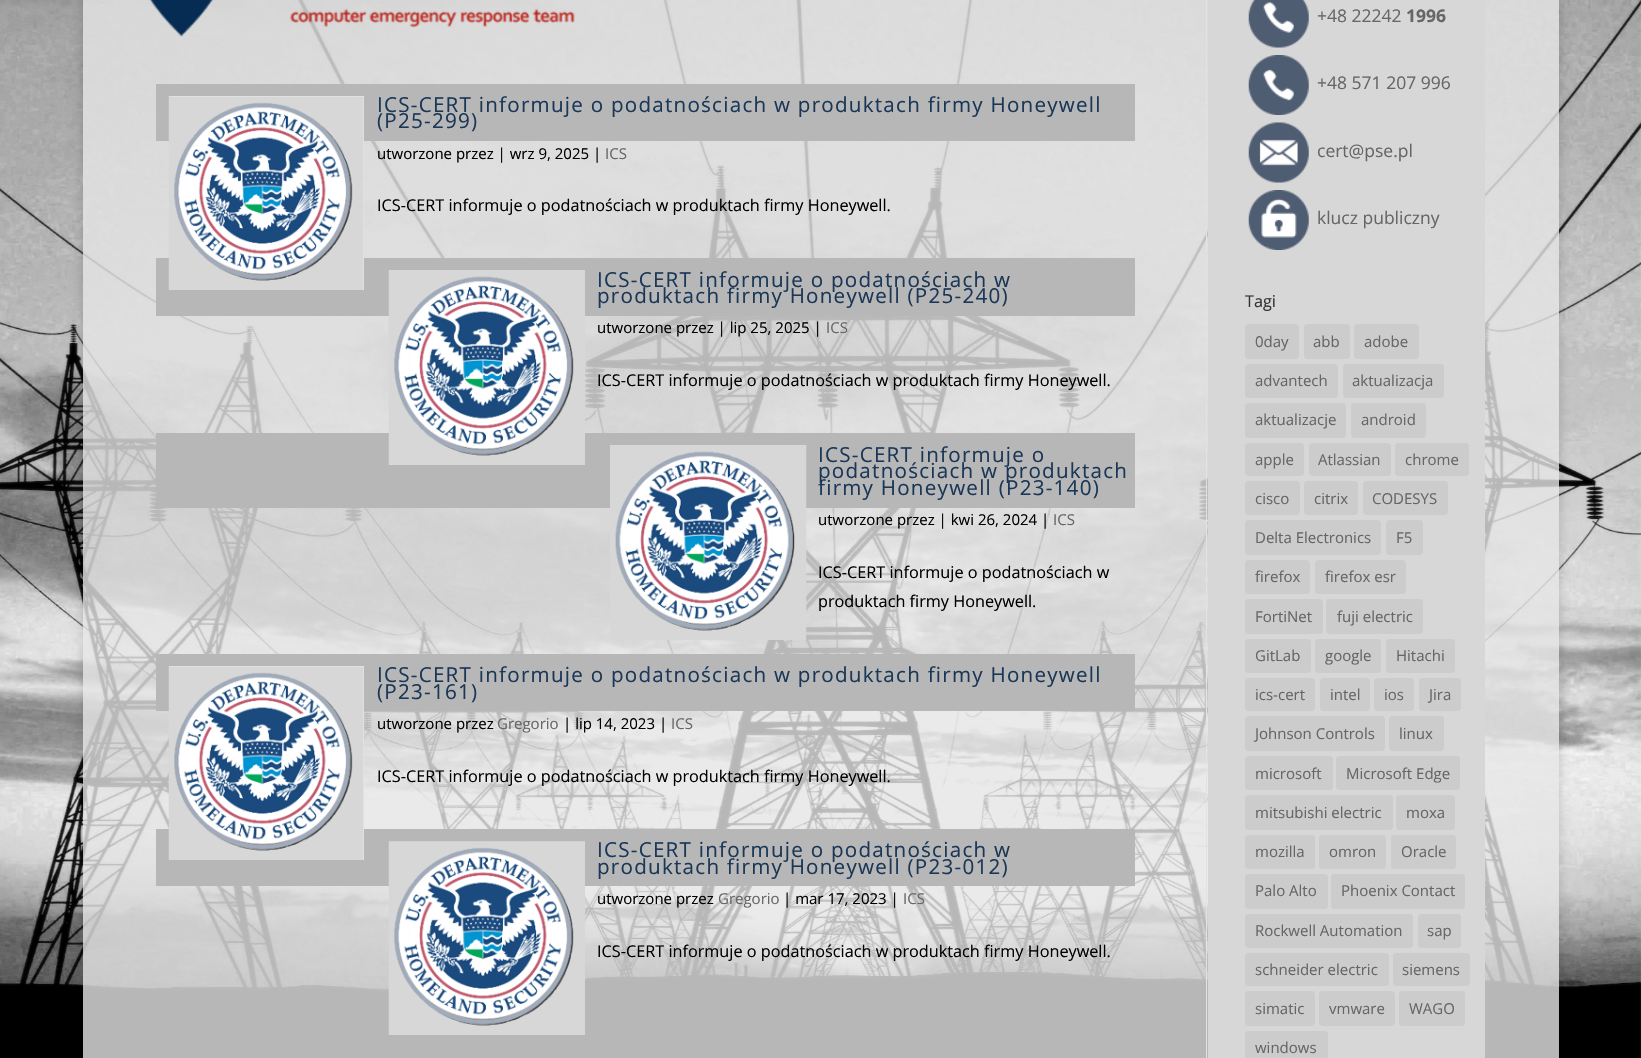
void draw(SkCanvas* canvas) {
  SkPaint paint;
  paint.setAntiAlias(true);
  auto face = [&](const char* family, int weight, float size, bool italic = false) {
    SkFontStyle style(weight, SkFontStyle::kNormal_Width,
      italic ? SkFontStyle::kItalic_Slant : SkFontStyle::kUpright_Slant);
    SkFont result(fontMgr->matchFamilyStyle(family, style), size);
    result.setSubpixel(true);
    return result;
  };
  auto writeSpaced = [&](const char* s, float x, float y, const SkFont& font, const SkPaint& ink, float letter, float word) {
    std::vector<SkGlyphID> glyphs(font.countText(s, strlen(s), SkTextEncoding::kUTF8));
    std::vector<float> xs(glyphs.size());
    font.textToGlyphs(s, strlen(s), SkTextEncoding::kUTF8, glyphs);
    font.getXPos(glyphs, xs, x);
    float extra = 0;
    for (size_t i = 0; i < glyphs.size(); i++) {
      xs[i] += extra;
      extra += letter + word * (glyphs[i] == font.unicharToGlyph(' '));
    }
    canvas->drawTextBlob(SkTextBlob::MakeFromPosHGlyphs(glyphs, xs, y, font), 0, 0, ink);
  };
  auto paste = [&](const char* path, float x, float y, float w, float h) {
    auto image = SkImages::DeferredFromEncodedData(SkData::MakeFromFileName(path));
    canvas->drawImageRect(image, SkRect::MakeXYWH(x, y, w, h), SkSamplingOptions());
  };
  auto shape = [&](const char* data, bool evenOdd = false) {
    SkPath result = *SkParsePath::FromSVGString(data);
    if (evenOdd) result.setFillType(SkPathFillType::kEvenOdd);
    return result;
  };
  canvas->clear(0xffffffff);
  paste("img/1.png", 0, 0, 1641, 1058);
  canvas->save();
  canvas->clipPath(shape("M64 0H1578V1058H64ZM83-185H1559V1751H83Z", true), true);
  paint.setColor(0x33000000);
  paint.setMaskFilter(SkMaskFilter::MakeBlur(kNormal_SkBlurStyle, 6));
  canvas->drawRect(SkRect::MakeXYWH(83, -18, 1476, 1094), paint);
  paint.setMaskFilter(nullptr);
  canvas->restore();
  paint.setColor(0xcce5e5e5);
  canvas->drawRect(SkRect::MakeXYWH(83, 0, 1476, 1058), paint);
  paste("img/2.png", 149, 0, 426, 37);
  {
    const struct { float x, y, w, h; SkColor color; } items[] = {
      {1206, 0, 1, 1058, 0xffe2e2e2},
      {156, 84, 979, 57, 0xffb7b7b7},
      {156, 258, 979, 58, 0xffb7b7b7},
      {169, 96, 195, 194, 0xffffffff},
    };
    for (auto [x, y, w, h, color] : items) {
      paint.setColor(color);
      canvas->drawRect(SkRect::MakeXYWH(x, y, w, h), paint);
    }
  }
  paste("img/3.png", 168, 96, 196, 194);
  paint.setColor(0xffb7b7b7);
  canvas->drawRect(SkRect::MakeXYWH(156, 433, 979, 75), paint);
  paste("img/4.png", 388, 270, 197, 195);
  paste("img/5.png", 610, 445, 197, 195);
  {
    const struct { float x, y, w, h; SkColor color; } items[] = {
      {156, 654, 979, 57, 0xffb7b7b7},
      {156, 829, 979, 57, 0xffb7b7b7},
      {169, 666, 195, 194, 0xffffffff},
    };
    for (auto [x, y, w, h, color] : items) {
      paint.setColor(color);
      canvas->drawRect(SkRect::MakeXYWH(x, y, w, h), paint);
    }
  }
  paste("img/6.png", 168, 666, 196, 194);
  paste("img/7.png", 388, 841, 197, 194);
  paint.setColor(0xffd7d7d7);
  canvas->drawRect(SkRect::MakeXYWH(1208, 0, 277, 1058), paint);
  paste("img/8.png", 1248, 0, 61, 48);
  paste("img/9.png", 1248, 55, 61, 60);
  paste("img/10.png", 1248, 122, 61, 61);
  paste("img/11.png", 1248, 190, 61, 60);
  paint.setColor(0xffcccccc);
  canvas->drawRoundRect(SkRect::MakeXYWH(1245, 324, 54, 35), 4, 4, paint);
  canvas->drawRoundRect(SkRect::MakeXYWH(1304, 324, 46, 35), 4, 4, paint);
  canvas->drawRoundRect(SkRect::MakeXYWH(1354, 324, 65, 35), 4, 4, paint);
  canvas->drawRoundRect(SkRect::MakeXYWH(1245, 364, 93, 34), 4, 4, paint);
  canvas->drawRoundRect(SkRect::MakeXYWH(1343, 364, 101, 34), 4, 4, paint);
  canvas->drawRoundRect(SkRect::MakeXYWH(1245, 403, 101, 35), 4, 4, paint);
  canvas->drawRoundRect(SkRect::MakeXYWH(1351, 403, 75, 35), 4, 4, paint);
  canvas->drawRoundRect(SkRect::MakeXYWH(1245, 443, 59, 33), 4, 4, paint);
  canvas->drawRoundRect(SkRect::MakeXYWH(1309, 443, 82, 33), 4, 4, paint);
  canvas->drawRoundRect(SkRect::MakeXYWH(1395, 443, 74, 33), 4, 4, paint);
  canvas->drawRoundRect(SkRect::MakeXYWH(1245, 481, 55, 34), 4, 4, paint);
  canvas->drawRoundRect(SkRect::MakeXYWH(1304, 481, 54, 34), 4, 4, paint);
  canvas->drawRoundRect(SkRect::MakeXYWH(1363, 481, 85, 34), 4, 4, paint);
  canvas->drawRoundRect(SkRect::MakeXYWH(1245, 520, 136, 35), 4, 4, paint);
  canvas->drawRoundRect(SkRect::MakeXYWH(1386, 520, 37, 35), 4, 4, paint);
  canvas->drawRoundRect(SkRect::MakeXYWH(1245, 560, 65, 34), 4, 4, paint);
  canvas->drawRoundRect(SkRect::MakeXYWH(1315, 560, 91, 34), 4, 4, paint);
  canvas->drawRoundRect(SkRect::MakeXYWH(1245, 599, 78, 35), 4, 4, paint);
  canvas->drawRoundRect(SkRect::MakeXYWH(1326, 599, 97, 35), 4, 4, paint);
  canvas->drawRoundRect(SkRect::MakeXYWH(1245, 639, 66, 34), 4, 4, paint);
  canvas->drawRoundRect(SkRect::MakeXYWH(1315, 639, 66, 34), 4, 4, paint);
  canvas->drawRoundRect(SkRect::MakeXYWH(1386, 639, 69, 34), 4, 4, paint);
  canvas->drawRoundRect(SkRect::MakeXYWH(1245, 678, 70, 33), 4, 4, paint);
  canvas->drawRoundRect(SkRect::MakeXYWH(1320, 678, 50, 33), 4, 4, paint);
  canvas->drawRoundRect(SkRect::MakeXYWH(1374, 678, 40, 33), 4, 4, paint);
  canvas->drawRoundRect(SkRect::MakeXYWH(1419, 678, 42, 33), 4, 4, paint);
  canvas->drawRoundRect(SkRect::MakeXYWH(1245, 716, 140, 35), 4, 4, paint);
  canvas->drawRoundRect(SkRect::MakeXYWH(1389, 716, 55, 35), 4, 4, paint);
  canvas->drawRoundRect(SkRect::MakeXYWH(1245, 756, 88, 34), 4, 4, paint);
  canvas->drawRoundRect(SkRect::MakeXYWH(1336, 756, 124, 34), 4, 4, paint);
  canvas->drawRoundRect(SkRect::MakeXYWH(1245, 795, 148, 35), 4, 4, paint);
  canvas->drawRoundRect(SkRect::MakeXYWH(1396, 795, 59, 35), 4, 4, paint);
  canvas->drawRoundRect(SkRect::MakeXYWH(1245, 835, 70, 34), 4, 4, paint);
  canvas->drawRoundRect(SkRect::MakeXYWH(1319, 835, 67, 34), 4, 4, paint);
  canvas->drawRoundRect(SkRect::MakeXYWH(1391, 835, 65, 34), 4, 4, paint);
  canvas->drawRoundRect(SkRect::MakeXYWH(1245, 874, 83, 35), 4, 4, paint);
  canvas->drawRoundRect(SkRect::MakeXYWH(1331, 874, 134, 35), 4, 4, paint);
  canvas->drawRoundRect(SkRect::MakeXYWH(1245, 914, 168, 34), 4, 4, paint);
  canvas->drawRoundRect(SkRect::MakeXYWH(1418, 914, 43, 34), 4, 4, paint);
  canvas->drawRoundRect(SkRect::MakeXYWH(1245, 953, 144, 33), 4, 4, paint);
  canvas->drawRoundRect(SkRect::MakeXYWH(1393, 953, 77, 33), 4, 4, paint);
  canvas->drawRoundRect(SkRect::MakeXYWH(1245, 991, 70, 35), 4, 4, paint);
  canvas->drawRoundRect(SkRect::MakeXYWH(1319, 991, 76, 35), 4, 4, paint);
  canvas->drawRoundRect(SkRect::MakeXYWH(1399, 991, 66, 35), 4, 4, paint);
  canvas->drawRoundRect(SkRect::MakeXYWH(1245, 1031, 83, 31), 4, 4, paint);
  auto f0 = face("Open Sans", 400, 20.6f);
  paint.setColor(0xff1a3757);
  writeSpaced("ICS-CERT informuje o podatnościach w produktach firmy Honeywell", 377, 112, f0, paint, 1.25f, 0);
  writeSpaced("(P25-299)", 377, 128, f0, paint, 1.25f, 0);
  auto f1 = face("Open Sans", 400, 15);
  paint.setColor(0xff000000);
  canvas->drawString("utworzone przez | wrz 9, 2025 |", 377, 159, f1, paint);
  paint.setColor(0xff666666);
  canvas->drawString("ICS", 605, 159, f1, paint);
  auto f2 = face("Open Sans", 400, 16.25f);
  paint.setColor(0xff000000);
  canvas->drawString("ICS-CERT informuje o podatnościach w produktach firmy Honeywell.", 377, 211, f2, paint);
  paint.setColor(0xff1a3757);
  writeSpaced("ICS-CERT informuje o podatnościach w", 597, 287, f0, paint, 1.25f, 0);
  writeSpaced("produktach firmy Honeywell (P25-240)", 597, 303, f0, paint, 1.25f, 0);
  paint.setColor(0xff000000);
  canvas->drawString("utworzone przez | lip 25, 2025 |", 597, 333, f1, paint);
  paint.setColor(0xff666666);
  canvas->drawString("ICS", 826, 333, f1, paint);
  paint.setColor(0xff000000);
  canvas->drawString("ICS-CERT informuje o podatnościach w produktach firmy Honeywell.", 597, 386, f2, paint);
  paint.setColor(0xff1a3757);
  {
    const struct { const char* s; float x, y; } items[] = {
      {"ICS-CERT informuje o", 818, 462},
      {"podatnościach w produktach", 818, 478},
      {"firmy Honeywell (P23-140)", 818, 495},
    };
    for (auto [s, x, y] : items) {
      writeSpaced(s, x, y, f0, paint, 1.25f, 0);
    }
  }
  paint.setColor(0xff000000);
  canvas->drawString("utworzone przez | kwi 26, 2024 |", 818, 525, f1, paint);
  paint.setColor(0xff666666);
  canvas->drawString("ICS", 1053, 525, f1, paint);
  paint.setColor(0xff000000);
  canvas->drawString("ICS-CERT informuje o podatnościach w", 818, 578, f2, paint);
  canvas->drawString("produktach firmy Honeywell.", 818, 607, f2, paint);
  paint.setColor(0xff1a3757);
  writeSpaced("ICS-CERT informuje o podatnościach w produktach firmy Honeywell", 377, 682, f0, paint, 1.25f, 0);
  writeSpaced("(P23-161)", 377, 699, f0, paint, 1.25f, 0);
  paint.setColor(0xff000000);
  canvas->drawString("utworzone przez", 377, 729, f1, paint);
  paint.setColor(0xff666666);
  canvas->drawString("Gregorio", 497, 729, f1, paint);
  paint.setColor(0xff000000);
  canvas->drawString("| lip 14, 2023 |", 563, 729, f1, paint);
  paint.setColor(0xff666666);
  canvas->drawString("ICS", 671, 729, f1, paint);
  paint.setColor(0xff000000);
  canvas->drawString("ICS-CERT informuje o podatnościach w produktach firmy Honeywell.", 377, 782, f2, paint);
  paint.setColor(0xff1a3757);
  writeSpaced("ICS-CERT informuje o podatnościach w", 597, 857, f0, paint, 1.25f, 0);
  writeSpaced("produktach firmy Honeywell (P23-012)", 597, 874, f0, paint, 1.25f, 0);
  paint.setColor(0xff000000);
  canvas->drawString("utworzone przez", 597, 904, f1, paint);
  paint.setColor(0xff666666);
  canvas->drawString("Gregorio", 718, 904, f1, paint);
  paint.setColor(0xff000000);
  canvas->drawString("| mar 17, 2023 |", 783, 904, f1, paint);
  paint.setColor(0xff666666);
  canvas->drawString("ICS", 903, 904, f1, paint);
  paint.setColor(0xff000000);
  canvas->drawString("ICS-CERT informuje o podatnościach w produktach firmy Honeywell.", 597, 957, f2, paint);
  auto f3 = face("Open Sans", 400, 17.5f);
  paint.setColor(0xff666666);
  canvas->drawString("+48 22242", 1317, 22, f3, paint);
  auto f4 = face("Open Sans", 700, 17.5f);
  canvas->drawString("1996", 1406, 22, f4, paint);
  {
    const struct { const char* s; float x, y; } items[] = {
      {"+48 571 207 996", 1317, 89},
      {"cert@pse.pl", 1317, 157},
      {"klucz publiczny", 1317, 224},
    };
    for (auto [s, x, y] : items) {
      canvas->drawString(s, x, y, f3, paint);
    }
  }
  paint.setColor(0xff333333);
  canvas->drawString("Tagi", 1245, 307, f2, paint);
  paint.setColor(0xff666666);
  {
    const struct { const char* s; float x, y; } items[] = {
      {"0day", 1255, 347},
      {"abb", 1313, 347},
      {"adobe", 1364, 347},
      {"advantech", 1255, 386},
      {"aktualizacja", 1352, 386},
      {"aktualizacje", 1255, 425},
      {"android", 1361, 425},
      {"apple", 1255, 465},
      {"Atlassian", 1318, 465},
      {"chrome", 1405, 465},
      {"cisco", 1255, 504},
      {"citrix", 1314, 504},
      {"CODESYS", 1372, 504},
      {"Delta Electronics", 1255, 543},
      {"F5", 1396, 543},
      {"firefox", 1255, 582},
      {"firefox esr", 1325, 582},
      {"FortiNet", 1255, 622},
      {"fuji electric", 1337, 622},
      {"GitLab", 1255, 661},
      {"google", 1325, 661},
      {"Hitachi", 1396, 661},
      {"ics-cert", 1255, 700},
      {"intel", 1330, 700},
      {"ios", 1384, 700},
      {"Jira", 1429, 700},
      {"Johnson Controls", 1255, 739},
      {"linux", 1399, 739},
      {"microsoft", 1255, 779},
      {"Microsoft Edge", 1346, 779},
      {"mitsubishi electric", 1255, 818},
      {"moxa", 1406, 818},
      {"mozilla", 1255, 857},
      {"omron", 1329, 857},
      {"Oracle", 1401, 857},
      {"Palo Alto", 1255, 896},
      {"Phoenix Contact", 1341, 896},
      {"Rockwell Automation", 1255, 936},
      {"sap", 1427, 936},
      {"schneider electric", 1255, 975},
      {"siemens", 1402, 975},
      {"simatic", 1255, 1014},
      {"vmware", 1329, 1014},
      {"WAGO", 1409, 1014},
      {"windows", 1255, 1053},
    };
    for (auto [s, x, y] : items) {
      canvas->drawString(s, x, y, f1, paint);
    }
  }
}
